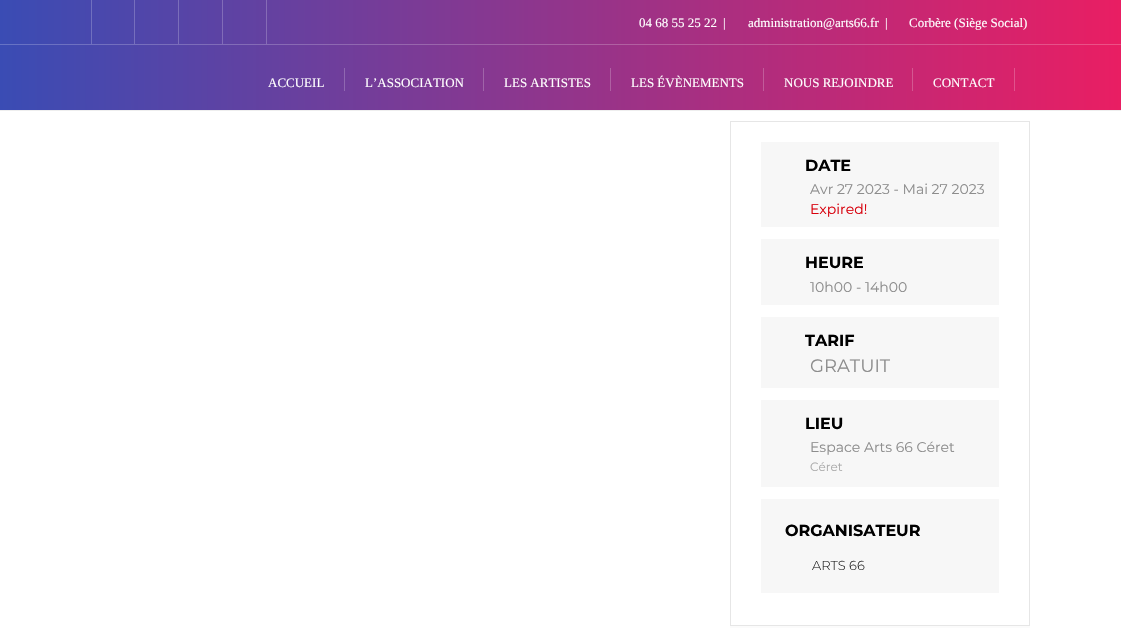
void draw(SkCanvas* canvas) {
  SkPaint paint;
  paint.setAntiAlias(true);
  auto face = [&](const char* family, int weight, float size, bool italic = false) {
    SkFontStyle style(weight, SkFontStyle::kNormal_Width,
      italic ? SkFontStyle::kItalic_Slant : SkFontStyle::kUpright_Slant);
    SkFont result(fontMgr->matchFamilyStyle(family, style), size);
    result.setSubpixel(true);
    return result;
  };
  canvas->clear(0xffffffff);
  paint.setColor(0xffeeeeee);
  canvas->drawRect(SkRect::MakeXYWH(0, 110, 1121, 1), paint);
  {
    const SkColor colors[] = {0xff3a4cb4, 0xffe91e63};
    const float stops[] = {0, 1};
    const SkPoint ends[] = {{0, 22}, {1121, 22}};
    paint.setShader(SkGradientShader::MakeLinear(ends, colors, stops, 2, SkTileMode::kClamp));
    paint.setAlpha(255);
  }
  canvas->drawRect(SkRect::MakeXYWH(0, 0, 1121, 44), paint);
  {
    const SkColor colors[] = {0xff6573c5, 0xffee5085};
    const float stops[] = {0, 1};
    const SkPoint ends[] = {{0, 22}, {1121, 22}};
    paint.setShader(SkGradientShader::MakeLinear(ends, colors, stops, 2, SkTileMode::kClamp));
    paint.setAlpha(255);
  }
  canvas->drawRect(SkRect::MakeXYWH(0, 44, 1121, 1), paint);
  paint.setShader(nullptr);
  {
    const struct { float x, y, w, h; SkColor color; } items[] = {
      {134, 0, 1, 44, 0xff766fbd},
      {91, 0, 1, 44, 0xff7070bf},
      {178, 0, 1, 44, 0xff7b6eba},
      {222, 0, 1, 44, 0xff816cb8},
      {266, 0, 1, 44, 0xff866bb6},
    };
    for (auto [x, y, w, h, color] : items) {
      paint.setColor(color);
      canvas->drawRect(SkRect::MakeXYWH(x, y, w, h), paint);
    }
  }
  {
    const SkColor colors[] = {0xff3a4cb4, 0xffe91e63};
    const float stops[] = {0, 1};
    const SkPoint ends[] = {{0, 78}, {1121, 77}};
    paint.setShader(SkGradientShader::MakeLinear(ends, colors, stops, 2, SkTileMode::kClamp));
    paint.setAlpha(255);
  }
  canvas->drawRect(SkRect::MakeXYWH(0, 45, 1121, 65), paint);
  paint.setShader(nullptr);
  {
    const struct { float x, y, w, h; SkColor color; } items[] = {
      {344, 68, 1, 23, 0xff8f68b1},
      {483, 68, 1, 23, 0xffa064a9},
      {610, 68, 1, 23, 0xffaf60a2},
      {763, 68, 1, 23, 0xffc25b9a},
      {912, 68, 1, 23, 0xffd45791},
      {1014, 68, 1, 23, 0xffe1538c},
      {730, 626, 300, 2, 0xfffbfbfb},
    };
    for (auto [x, y, w, h, color] : items) {
      paint.setColor(color);
      canvas->drawRect(SkRect::MakeXYWH(x, y, w, h), paint);
    }
  }
  paint.setStroke(true);
  paint.setStrokeWidth(1);
  paint.setColor(0xffe6e6e6);
  canvas->drawRect(SkRect::MakeXYWH(730.5f, 121.5f, 299, 504), paint);
  paint.setStroke(false);
  {
    const struct { float x, y, w, h; SkColor color; } items[] = {
      {761, 142, 238, 85, 0xfff7f7f7},
      {761, 239, 238, 66, 0xfff7f7f7},
      {761, 317, 238, 71, 0xfff7f7f7},
      {761, 400, 238, 87, 0xfff7f7f7},
      {761, 499, 238, 94, 0xfff7f7f7},
    };
    for (auto [x, y, w, h, color] : items) {
      paint.setColor(color);
      canvas->drawRect(SkRect::MakeXYWH(x, y, w, h), paint);
    }
  }
  auto f0 = face("Liberation Serif", 400, 13);
  paint.setColor(0xffffffff);
  {
    const struct { const char* s; float x, y; } items[] = {
      {"04 68 55 25 22", 639, 27},
      {"|", 723, 27},
      {"administration@arts66.fr", 748, 27},
      {"|", 885, 27},
      {"Corbère (Siège Social)", 909, 27},
      {"ACCUEIL", 268, 87},
      {"L’ASSOCIATION", 365, 87},
      {"LES ARTISTES", 504, 87},
      {"LES ÉVÈNEMENTS", 631, 87},
      {"NOUS REJOINDRE", 784, 87},
      {"CONTACT", 933, 87},
    };
    for (auto [s, x, y] : items) {
      canvas->drawString(s, x, y, f0, paint);
    }
  }
  auto f1 = face("Montserrat", 700, 16);
  paint.setColor(0xff000000);
  canvas->drawString("DATE", 805, 171, f1, paint);
  auto f2 = face("Montserrat", 400, 14);
  paint.setColor(0xff8d8d8d);
  canvas->drawString("Avr 27 2023 - Mai 27 2023", 810, 194, f2, paint);
  paint.setColor(0xffd8000c);
  canvas->drawString("Expired!", 810, 214, f2, paint);
  paint.setColor(0xff000000);
  canvas->drawString("HEURE", 805, 268, f1, paint);
  paint.setColor(0xff8d8d8d);
  canvas->drawString("10h00 - 14h00", 810, 292, f2, paint);
  paint.setColor(0xff000000);
  canvas->drawString("TARIF", 805, 346, f1, paint);
  auto f3 = face("Montserrat", 400, 18);
  paint.setColor(0xff8d8d8d);
  canvas->drawString("GRATUIT", 810, 372, f3, paint);
  paint.setColor(0xff000000);
  canvas->drawString("LIEU", 805, 429, f1, paint);
  paint.setColor(0xff8d8d8d);
  canvas->drawString("Espace Arts 66 Céret", 810, 452, f2, paint);
  auto f4 = face("Montserrat", 400, 12);
  paint.setColor(0xffa9a9a9);
  canvas->drawString("Céret", 810, 471, f4, paint);
  paint.setColor(0xff000000);
  canvas->drawString("ORGANISATEUR", 785, 536, f1, paint);
  auto f5 = face("Montserrat", 300, 13);
  paint.setColor(0xff222222);
  canvas->drawString("ARTS 66", 812, 570, f5, paint);
}
